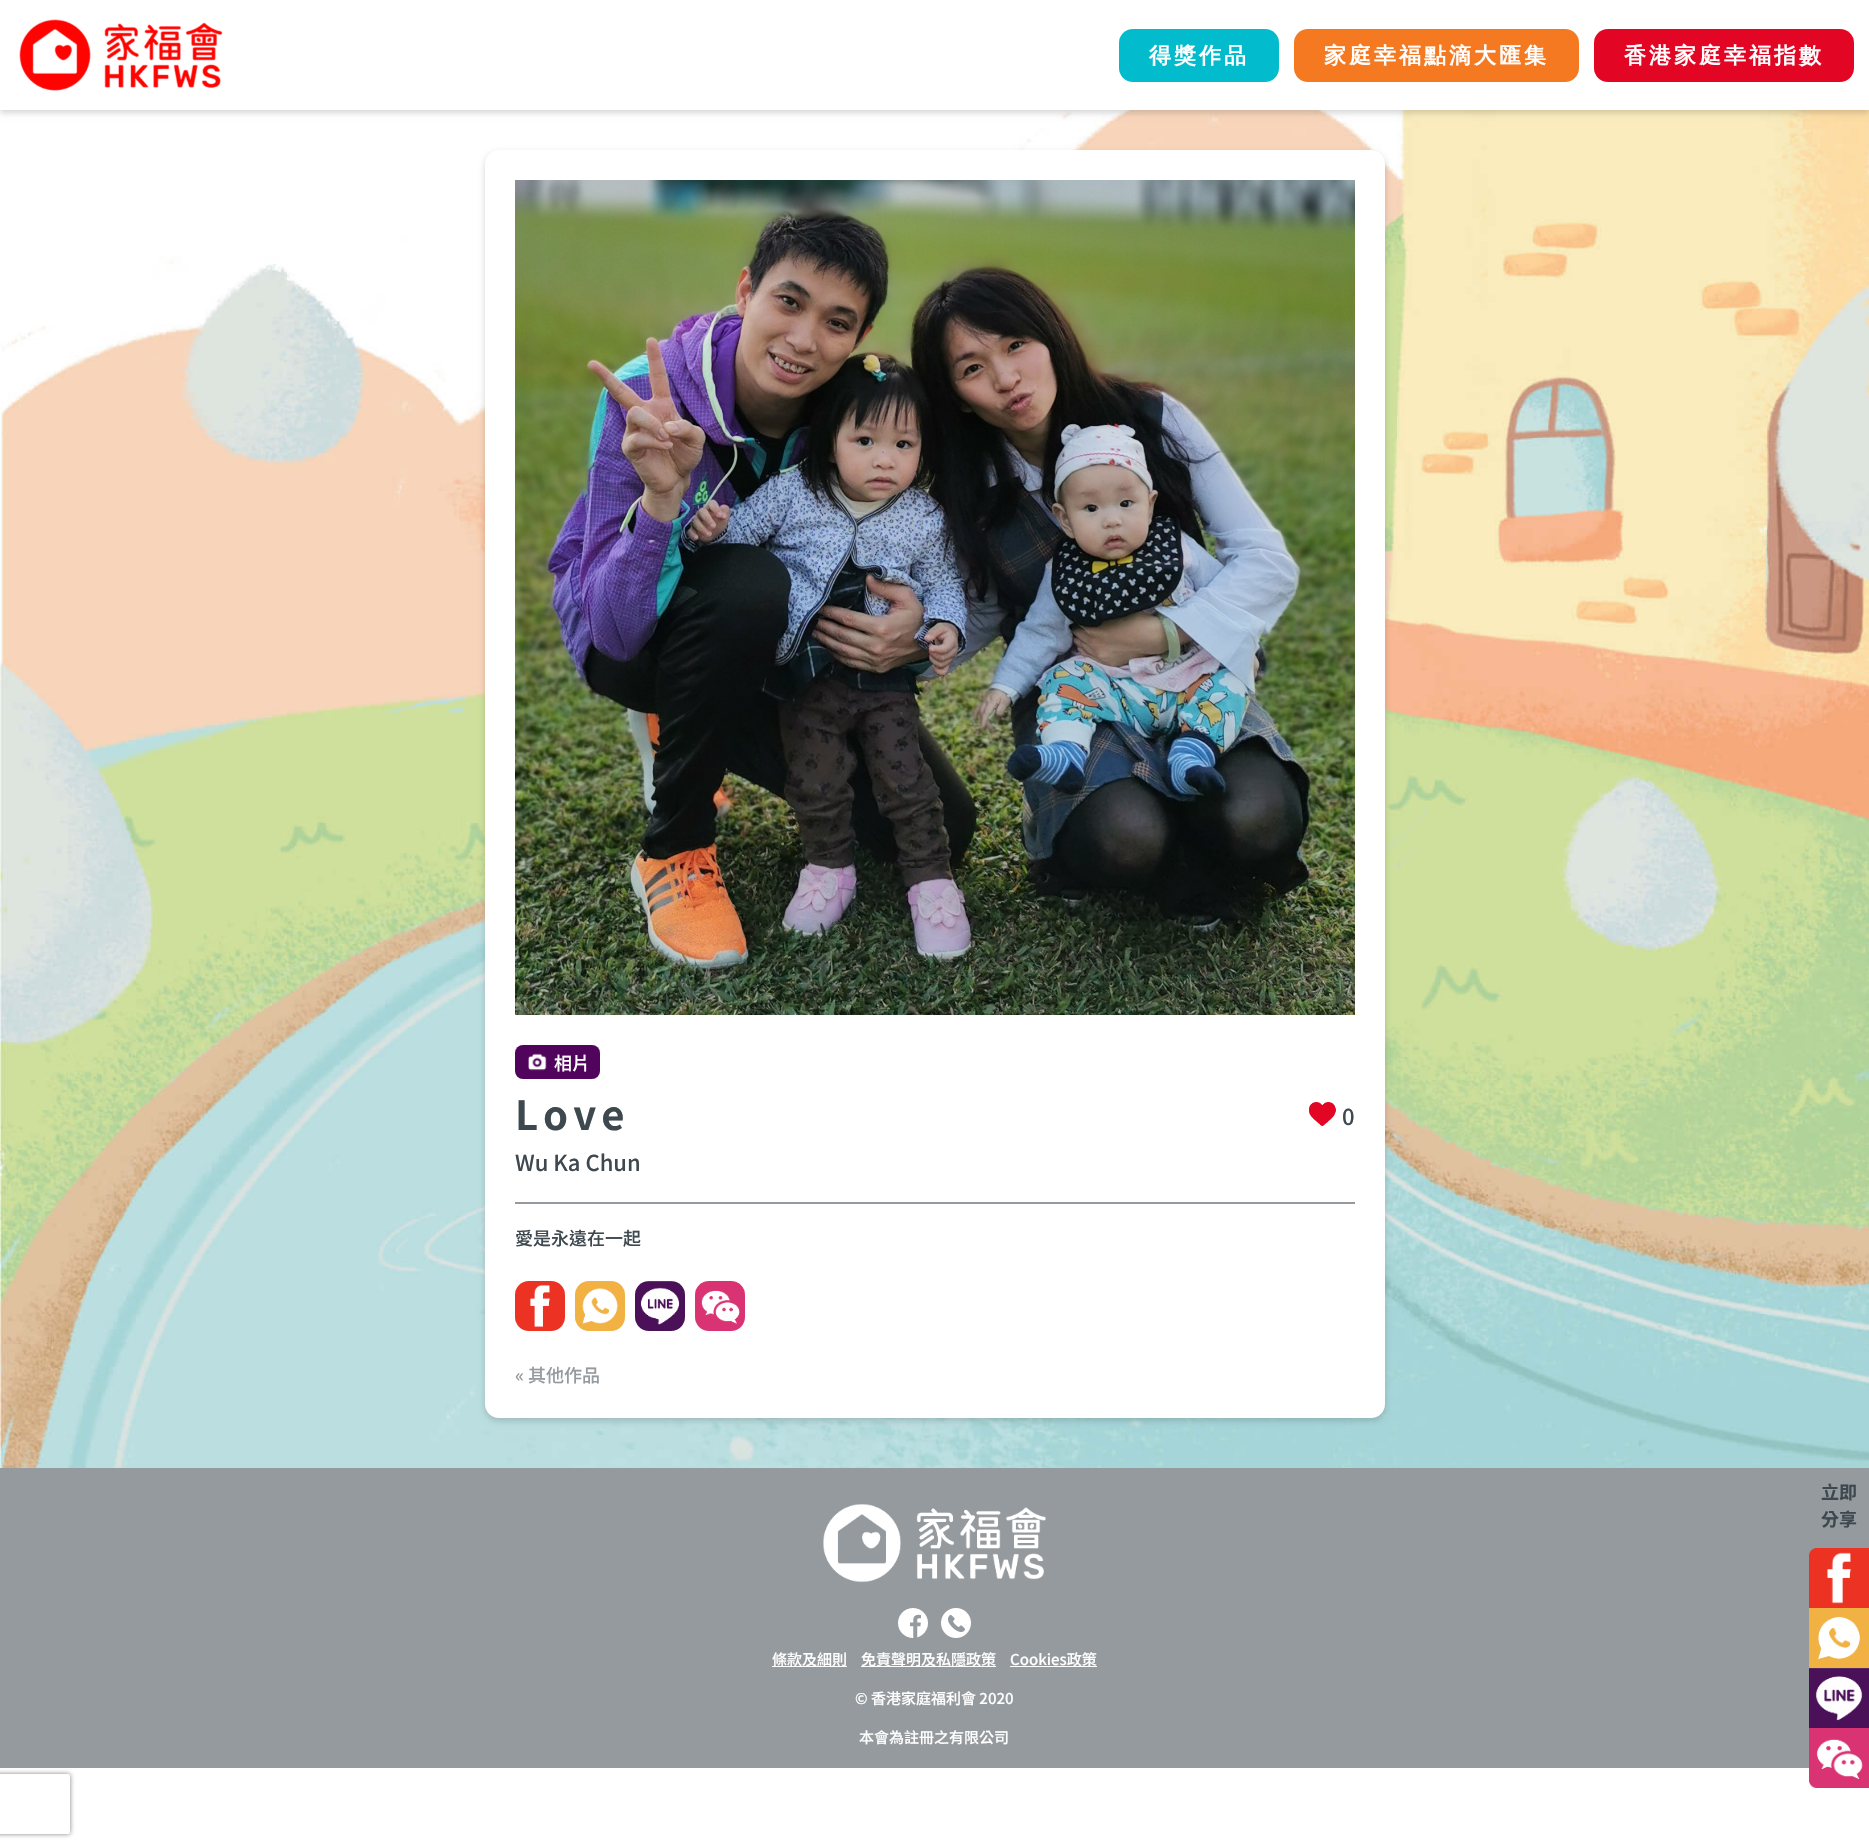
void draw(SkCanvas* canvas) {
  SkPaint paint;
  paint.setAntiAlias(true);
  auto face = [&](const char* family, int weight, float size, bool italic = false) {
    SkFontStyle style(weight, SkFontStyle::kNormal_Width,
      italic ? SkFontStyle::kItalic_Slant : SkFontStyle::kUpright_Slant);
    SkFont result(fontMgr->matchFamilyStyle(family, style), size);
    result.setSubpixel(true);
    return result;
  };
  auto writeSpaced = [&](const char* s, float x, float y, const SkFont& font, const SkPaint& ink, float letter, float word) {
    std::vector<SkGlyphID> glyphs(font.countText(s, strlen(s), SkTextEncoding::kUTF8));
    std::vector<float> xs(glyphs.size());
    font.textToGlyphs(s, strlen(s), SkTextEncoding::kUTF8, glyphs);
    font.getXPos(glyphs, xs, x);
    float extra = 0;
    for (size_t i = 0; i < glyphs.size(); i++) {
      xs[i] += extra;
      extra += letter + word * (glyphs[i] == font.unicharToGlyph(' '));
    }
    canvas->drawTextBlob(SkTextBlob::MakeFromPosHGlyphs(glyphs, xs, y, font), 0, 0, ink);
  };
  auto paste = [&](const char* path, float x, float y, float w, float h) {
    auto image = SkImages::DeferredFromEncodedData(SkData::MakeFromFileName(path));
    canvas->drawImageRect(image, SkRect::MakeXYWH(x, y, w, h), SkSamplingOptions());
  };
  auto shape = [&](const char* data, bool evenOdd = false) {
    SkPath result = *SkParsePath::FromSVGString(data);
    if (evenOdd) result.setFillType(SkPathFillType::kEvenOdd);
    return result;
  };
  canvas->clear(0xffffffff);
  paste("img/2.png", 0, 110, 1869, 1358);
  paint.setColor(0x29000000);
  paint.setMaskFilter(SkMaskFilter::MakeBlur(kNormal_SkBlurStyle, 3));
  canvas->drawRect(SkRect::MakeXYWH(0, 3, 1869, 110), paint);
  paint.setMaskFilter(nullptr);
  paint.setColor(0xffffffff);
  canvas->drawRect(SkRect::MakeXYWH(0, 0, 1869, 110), paint);
  paste("img/1.png", 19, 19, 204, 72);
  paint.setColor(0xff02bcce);
  canvas->drawRoundRect(SkRect::MakeXYWH(1119, 29, 160, 53), 14, 14, paint);
  paint.setColor(0xfff47921);
  canvas->drawRoundRect(SkRect::MakeXYWH(1294, 29, 285, 53), 14, 14, paint);
  paint.setColor(0xffe30524);
  canvas->drawRoundRect(SkRect::MakeXYWH(1594, 29, 260, 53), 14, 14, paint);
  paint.setColor(0x29000000);
  paint.setMaskFilter(SkMaskFilter::MakeBlur(kNormal_SkBlurStyle, 3));
  canvas->drawRoundRect(SkRect::MakeXYWH(485, 153, 900, 1268), 14, 14, paint);
  paint.setMaskFilter(nullptr);
  paint.setColor(0xffffffff);
  canvas->drawRoundRect(SkRect::MakeXYWH(485, 150, 900, 1268), 14, 14, paint);
  paste("img/3.png", 515, 180, 840, 835);
  paint.setColor(0xff51045b);
  canvas->drawRoundRect(SkRect::MakeXYWH(515, 1045, 85, 34), 8, 8, paint);
  paste("img/4.png", 528, 1053, 19, 18);
  paste("img/5.png", 1309, 1102, 27, 24);
  paint.setColor(0xff959a9e);
  canvas->drawRect(SkRect::MakeXYWH(515, 1202, 840, 2), paint);
  paste("img/6.png", 515, 1281, 50, 50);
  paste("img/7.png", 575, 1281, 50, 50);
  paste("img/8.png", 635, 1281, 50, 50);
  paste("img/9.png", 695, 1281, 50, 50);
  canvas->drawRect(SkRect::MakeXYWH(0, 1468, 1869, 300), paint);
  paste("img/10.png", 1809, 1548, 60, 60);
  paste("img/11.png", 1809, 1608, 60, 60);
  paste("img/12.png", 1809, 1668, 60, 60);
  paste("img/13.png", 1809, 1728, 60, 60);
  paste("img/14.png", 823, 1504, 223, 79);
  paste("img/15.png", 898, 1608, 30, 30);
  paste("img/16.png", 941, 1608, 30, 30);
  {
    const struct { float x, y, w, h; SkColor color; } items[] = {
      {772, 1666, 75, 1, 0xffffffff},
      {861, 1666, 135, 1, 0xffffffff},
      {1010, 1666, 87, 1, 0xffffffff},
    };
    for (auto [x, y, w, h, color] : items) {
      paint.setColor(color);
      canvas->drawRect(SkRect::MakeXYWH(x, y, w, h), paint);
    }
  }
  canvas->save();
  canvas->clipPath(shape("M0 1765H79V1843H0ZM-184 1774H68C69 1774 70 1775 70 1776V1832C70 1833 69 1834 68 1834H-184C-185 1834-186 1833-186 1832V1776C-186 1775-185 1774-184 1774Z", true), true);
  paint.setColor(0xff808080);
  paint.setMaskFilter(SkMaskFilter::MakeBlur(kNormal_SkBlurStyle, 2.5f));
  canvas->drawRoundRect(SkRect::MakeXYWH(-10, 1774, 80, 60), 2, 2, paint);
  paint.setMaskFilter(nullptr);
  canvas->restore();
  auto f0 = face("WenQuanYi Zen Hei", 700, 22);
  paint.setColor(0xffffffff);
  {
    const struct { const char* s; float x, y; } items[] = {
      {"得獎作品", 1149, 63},
      {"家庭幸福點滴大匯集", 1324, 63},
      {"香港家庭幸福指數", 1624, 63},
    };
    for (auto [s, x, y] : items) {
      writeSpaced(s, x, y, f0, paint, 3, 0);
    }
  }
  auto f1 = face("Noto Sans TC", 500, 18);
  canvas->drawString("相片", 554, 1070, f1, paint);
  auto f2 = face("Noto Sans TC", 700, 40);
  paint.setColor(0xff3e484f);
  writeSpaced("Love", 515, 1130, f2, paint, 5, 0);
  auto f3 = face("Noto Sans TC", 500, 22);
  canvas->drawString("Wu Ka Chun", 515, 1171, f3, paint);
  canvas->drawString("0", 1342, 1125, f3, paint);
  canvas->drawString("愛是永遠在一起", 515, 1245, f1, paint);
  paint.setColor(0xff959a9e);
  canvas->drawString("« 其他作品", 515, 1382, f1, paint);
  auto f4 = face("Noto Sans TC", 700, 18);
  paint.setColor(0xff3e484f);
  canvas->drawString("立即", 1821, 1499, f4, paint);
  canvas->drawString("分享", 1821, 1526, f4, paint);
  auto f5 = face("Noto Sans TC", 500, 15);
  paint.setColor(0xffffffff);
  {
    const struct { const char* s; float x, y; } items[] = {
      {"條款及細則", 772, 1665},
      {"免責聲明及私隱政策", 861, 1665},
      {"Cookies政策", 1010, 1665},
      {"© 香港家庭福利會 2020", 855, 1704},
      {"本會為註冊之有限公司", 859, 1743},
    };
    for (auto [s, x, y] : items) {
      canvas->drawString(s, x, y, f5, paint);
    }
  }
}
